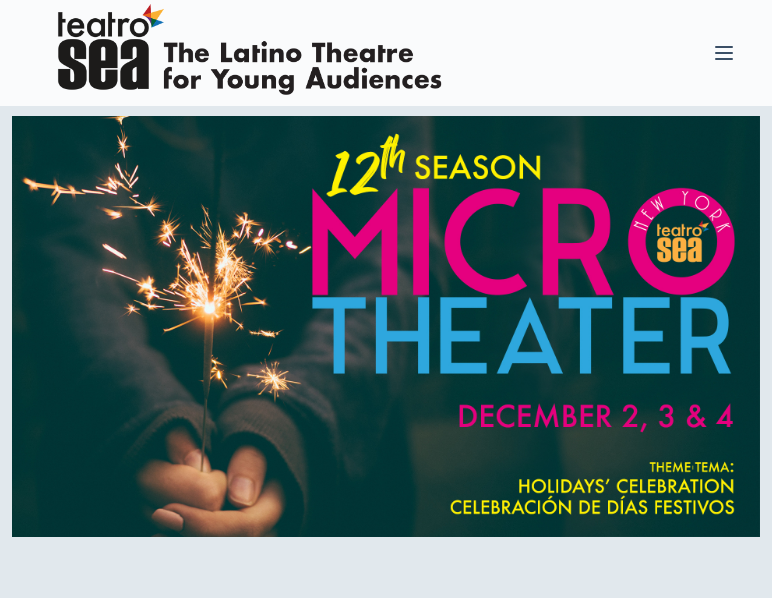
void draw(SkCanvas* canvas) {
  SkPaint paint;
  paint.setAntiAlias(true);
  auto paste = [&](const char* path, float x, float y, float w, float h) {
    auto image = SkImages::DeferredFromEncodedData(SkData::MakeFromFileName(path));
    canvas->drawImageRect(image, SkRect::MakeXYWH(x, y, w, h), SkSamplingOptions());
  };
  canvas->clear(0xffe1e8ed);
  paint.setColor(0xfffafbfc);
  canvas->drawRect(SkRect::MakeXYWH(0, 0, 772, 106), paint);
  paste("img/1.png", 57, 4, 385, 91);
  paint.setColor(0xff3a4f66);
  canvas->drawRoundRect(SkRect::MakeXYWH(715, 46, 18, 2), 1, 1, paint);
  canvas->drawRoundRect(SkRect::MakeXYWH(715, 52, 18, 2), 1, 1, paint);
  canvas->drawRoundRect(SkRect::MakeXYWH(715, 58, 18, 2), 1, 1, paint);
  paste("img/2.png", 12, 116, 748, 421);
}
